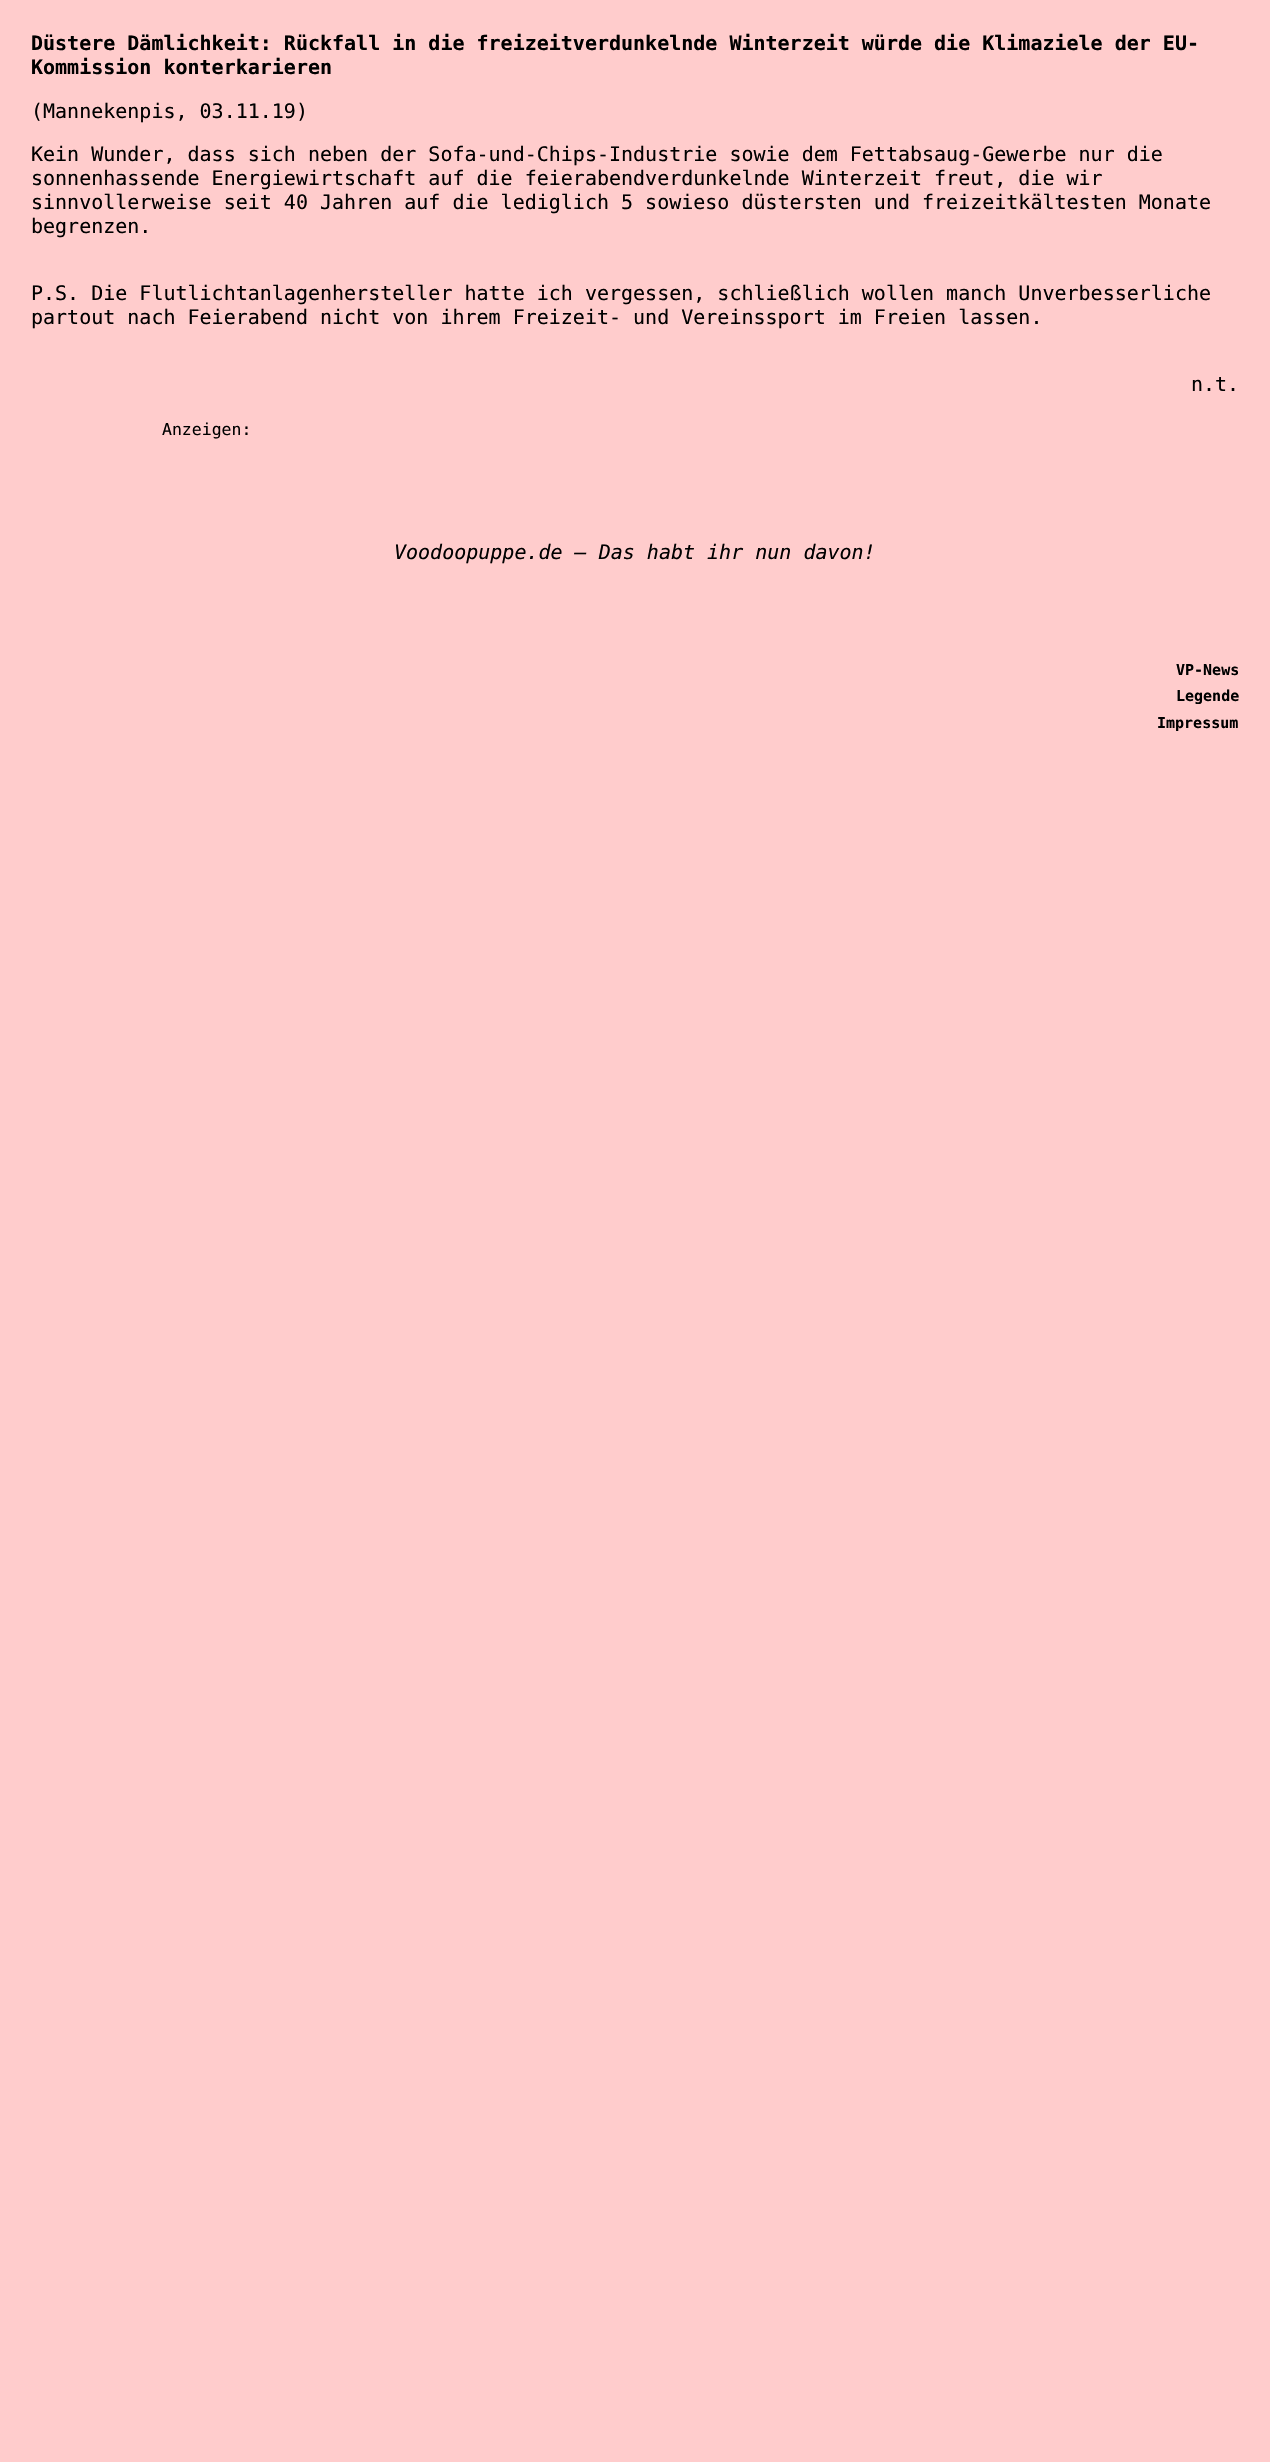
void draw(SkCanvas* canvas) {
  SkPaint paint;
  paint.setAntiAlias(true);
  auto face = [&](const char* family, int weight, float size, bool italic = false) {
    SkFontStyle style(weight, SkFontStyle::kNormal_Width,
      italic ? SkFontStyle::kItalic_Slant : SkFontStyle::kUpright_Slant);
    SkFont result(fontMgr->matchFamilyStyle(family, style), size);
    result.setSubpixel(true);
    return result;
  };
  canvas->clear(0xffffcccc);
  auto f0 = face("DejaVu Sans Mono", 700, 20);
  paint.setColor(0xff000000);
  canvas->drawString("Düstere Dämlichkeit: Rückfall in die freizeitverdunkelnde Winterzeit würde die Klimaziele der EU-", 31, 50, f0, paint);
  canvas->drawString("Kommission konterkarieren", 31, 74, f0, paint);
  auto f1 = face("DejaVu Sans Mono", 400, 20);
  {
    const struct { const char* s; float x, y; } items[] = {
      {"(Mannekenpis, 03.11.19)", 31, 118},
      {"Kein Wunder, dass sich neben der Sofa-und-Chips-Industrie sowie dem Fettabsaug-Gewerbe nur die", 31, 161},
      {"sonnenhassende Energiewirtschaft auf die feierabendverdunkelnde Winterzeit freut, die wir", 31, 185},
      {"sinnvollerweise seit 40 Jahren auf die lediglich 5 sowieso düstersten und freizeitkältesten Monate", 31, 209},
      {"begrenzen.", 31, 233},
      {"P.S. Die Flutlichtanlagenhersteller hatte ich vergessen, schließlich wollen manch Unverbesserliche", 31, 300},
      {"partout nach Feierabend nicht von ihrem Freizeit- und Vereinssport im Freien lassen.", 31, 324},
      {"n.t.", 1191, 391},
    };
    for (auto [s, x, y] : items) {
      canvas->drawString(s, x, y, f1, paint);
    }
  }
  auto f2 = face("DejaVu Sans Mono", 400, 16.5f);
  canvas->drawString("Anzeigen:", 162, 435, f2, paint);
  auto f3 = face("DejaVu Sans Mono", 400, 20, true);
  canvas->drawString("Voodoopuppe.de – Das habt ihr nun davon!", 394, 559, f3, paint);
  auto f4 = face("DejaVu Sans Mono", 700, 15);
  {
    const struct { const char* s; float x, y; } items[] = {
      {"VP-News", 1176, 675},
      {"Legende", 1176, 701},
      {"Impressum", 1157, 728},
    };
    for (auto [s, x, y] : items) {
      canvas->drawString(s, x, y, f4, paint);
    }
  }
}
